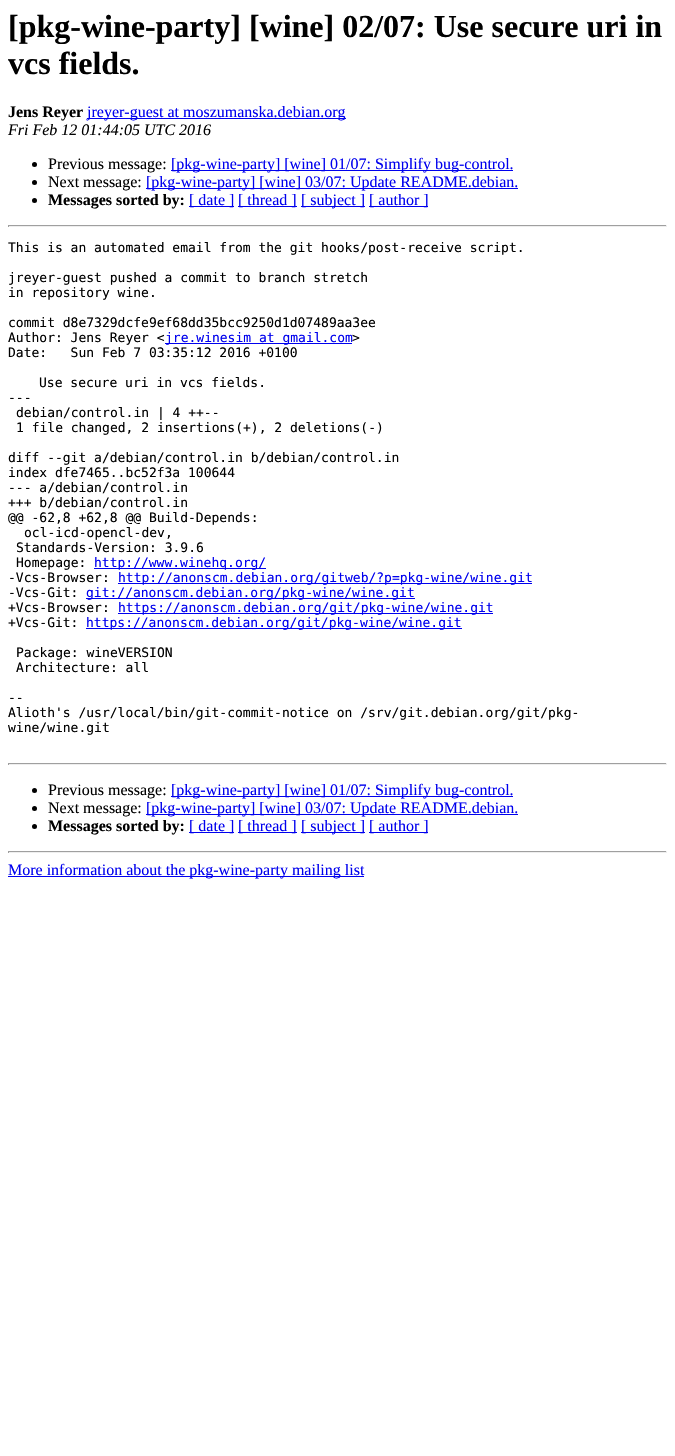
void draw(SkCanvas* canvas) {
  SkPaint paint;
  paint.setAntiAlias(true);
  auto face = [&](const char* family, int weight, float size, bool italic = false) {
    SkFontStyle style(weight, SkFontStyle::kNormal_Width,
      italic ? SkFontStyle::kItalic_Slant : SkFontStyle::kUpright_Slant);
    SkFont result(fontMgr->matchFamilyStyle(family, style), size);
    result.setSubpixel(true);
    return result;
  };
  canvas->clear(0xffffffff);
  paint.setColor(0xff0000ee);
  canvas->drawRect(SkRect::MakeXYWH(87, 118, 259, 1), paint);
  paint.setColor(0xff000000);
  canvas->drawCircle(34.5f, 164.5f, 2.5f, paint);
  paint.setColor(0xff0000ee);
  canvas->drawRect(SkRect::MakeXYWH(171, 170, 342, 1), paint);
  paint.setColor(0xff000000);
  canvas->drawCircle(34.5f, 182.5f, 2.5f, paint);
  paint.setColor(0xff0000ee);
  canvas->drawRect(SkRect::MakeXYWH(146, 188, 372, 1), paint);
  paint.setColor(0xff000000);
  canvas->drawCircle(34.5f, 200.5f, 2.5f, paint);
  {
    const struct { float x, y, w, h; SkColor color; } items[] = {
      {189, 206, 45, 1, 0xff0000ee},
      {238, 206, 59, 1, 0xff0000ee},
      {301, 206, 64, 1, 0xff0000ee},
      {369, 206, 59, 1, 0xff0000ee},
      {8, 225, 659, 1, 0xff9f9f9f},
      {666, 225, 1, 2, 0xffeeeeee},
      {8, 226, 659, 1, 0xffeeeeee},
      {8, 225, 1, 2, 0xff9f9f9f},
      {165, 343, 187, 1, 0xff0000ee},
      {94, 568, 172, 1, 0xff0000ee},
      {118, 583, 414, 1, 0xff0000ee},
      {86, 598, 329, 1, 0xff0000ee},
      {118, 613, 375, 1, 0xff0000ee},
      {86, 628, 376, 1, 0xff0000ee},
      {8, 763, 659, 1, 0xff9f9f9f},
      {666, 763, 1, 2, 0xffeeeeee},
      {8, 764, 659, 1, 0xffeeeeee},
      {8, 763, 1, 2, 0xff9f9f9f},
    };
    for (auto [x, y, w, h, color] : items) {
      paint.setColor(color);
      canvas->drawRect(SkRect::MakeXYWH(x, y, w, h), paint);
    }
  }
  paint.setColor(0xff000000);
  canvas->drawCircle(34.5f, 790.5f, 2.5f, paint);
  paint.setColor(0xff0000ee);
  canvas->drawRect(SkRect::MakeXYWH(171, 796, 342, 1), paint);
  paint.setColor(0xff000000);
  canvas->drawCircle(34.5f, 808.5f, 2.5f, paint);
  paint.setColor(0xff0000ee);
  canvas->drawRect(SkRect::MakeXYWH(146, 814, 372, 1), paint);
  paint.setColor(0xff000000);
  canvas->drawCircle(34.5f, 826.5f, 2.5f, paint);
  {
    const struct { float x, y, w, h; SkColor color; } items[] = {
      {189, 832, 45, 1, 0xff0000ee},
      {238, 832, 59, 1, 0xff0000ee},
      {301, 832, 64, 1, 0xff0000ee},
      {369, 832, 59, 1, 0xff0000ee},
      {8, 851, 659, 1, 0xff9f9f9f},
      {666, 851, 1, 2, 0xffeeeeee},
      {8, 852, 659, 1, 0xffeeeeee},
      {8, 851, 1, 2, 0xff9f9f9f},
      {8, 876, 356, 1, 0xff0000ee},
    };
    for (auto [x, y, w, h, color] : items) {
      paint.setColor(color);
      canvas->drawRect(SkRect::MakeXYWH(x, y, w, h), paint);
    }
  }
  auto f0 = face("Liberation Serif", 700, 32);
  paint.setColor(0xff000000);
  canvas->drawString("[pkg-wine-party] [wine] 02/07: Use secure uri in", 8, 37, f0, paint);
  canvas->drawString("vcs fields.", 8, 74, f0, paint);
  auto f1 = face("Liberation Serif", 700, 16);
  canvas->drawString("Jens Reyer", 8, 117, f1, paint);
  auto f2 = face("Liberation Serif", 400, 16);
  paint.setColor(0xff0000ee);
  canvas->drawString("jreyer-guest at moszumanska.debian.org", 87, 117, f2, paint);
  auto f3 = face("Liberation Serif", 400, 16, true);
  paint.setColor(0xff000000);
  canvas->drawString("Fri Feb 12 01:44:05 UTC 2016", 8, 135, f3, paint);
  canvas->drawString("Previous message:", 48, 169, f2, paint);
  paint.setColor(0xff0000ee);
  canvas->drawString("[pkg-wine-party] [wine] 01/07: Simplify bug-control.", 171, 169, f2, paint);
  paint.setColor(0xff000000);
  canvas->drawString("Next message:", 48, 187, f2, paint);
  paint.setColor(0xff0000ee);
  canvas->drawString("[pkg-wine-party] [wine] 03/07: Update README.debian.", 146, 187, f2, paint);
  paint.setColor(0xff000000);
  canvas->drawString("Messages sorted by:", 48, 205, f1, paint);
  paint.setColor(0xff0000ee);
  {
    const struct { const char* s; float x, y; } items[] = {
      {"[ date ]", 189, 205},
      {"[ thread ]", 238, 205},
      {"[ subject ]", 301, 205},
      {"[ author ]", 369, 205},
    };
    for (auto [s, x, y] : items) {
      canvas->drawString(s, x, y, f2, paint);
    }
  }
  auto f4 = face("DejaVu Sans Mono", 400, 13);
  paint.setColor(0xff000000);
  {
    const struct { const char* s; float x, y; } items[] = {
      {"This is an automated email from the git hooks/post-receive script.", 8, 252},
      {"jreyer-guest pushed a commit to branch stretch", 8, 282},
      {"in repository wine.", 8, 297},
      {"commit d8e7329dcfe9ef68dd35bcc9250d1d07489aa3ee", 8, 327},
      {"Author: Jens Reyer <", 8, 342},
    };
    for (auto [s, x, y] : items) {
      canvas->drawString(s, x, y, f4, paint);
    }
  }
  paint.setColor(0xff0000ee);
  canvas->drawString("jre.winesim at gmail.com", 165, 342, f4, paint);
  paint.setColor(0xff000000);
  {
    const struct { const char* s; float x, y; } items[] = {
      {">", 352, 342},
      {"Date:   Sun Feb 7 03:35:12 2016 +0100", 8, 357},
      {"Use secure uri in vcs fields.", 39, 387},
      {"---", 8, 402},
      {"debian/control.in | 4 ++--", 16, 417},
      {"1 file changed, 2 insertions(+), 2 deletions(-)", 16, 432},
      {"diff --git a/debian/control.in b/debian/control.in", 8, 462},
      {"index dfe7465..bc52f3a 100644", 8, 477},
      {"--- a/debian/control.in", 8, 492},
      {"+++ b/debian/control.in", 8, 507},
      {"@@ -62,8 +62,8 @@ Build-Depends:", 8, 522},
      {"ocl-icd-opencl-dev,", 24, 537},
      {"Standards-Version: 3.9.6", 16, 552},
      {"Homepage:", 16, 567},
    };
    for (auto [s, x, y] : items) {
      canvas->drawString(s, x, y, f4, paint);
    }
  }
  paint.setColor(0xff0000ee);
  canvas->drawString("http://www.winehq.org/", 94, 567, f4, paint);
  paint.setColor(0xff000000);
  canvas->drawString("-Vcs-Browser:", 8, 582, f4, paint);
  paint.setColor(0xff0000ee);
  canvas->drawString("http://anonscm.debian.org/gitweb/?p=pkg-wine/wine.git", 118, 582, f4, paint);
  paint.setColor(0xff000000);
  canvas->drawString("-Vcs-Git:", 8, 597, f4, paint);
  paint.setColor(0xff0000ee);
  canvas->drawString("git://anonscm.debian.org/pkg-wine/wine.git", 86, 597, f4, paint);
  paint.setColor(0xff000000);
  canvas->drawString("+Vcs-Browser:", 8, 612, f4, paint);
  paint.setColor(0xff0000ee);
  canvas->drawString("https://anonscm.debian.org/git/pkg-wine/wine.git", 118, 612, f4, paint);
  paint.setColor(0xff000000);
  canvas->drawString("+Vcs-Git:", 8, 627, f4, paint);
  paint.setColor(0xff0000ee);
  canvas->drawString("https://anonscm.debian.org/git/pkg-wine/wine.git", 86, 627, f4, paint);
  paint.setColor(0xff000000);
  {
    const struct { const char* s; float x, y; } items[] = {
      {"Package: wineVERSION", 16, 657},
      {"Architecture: all", 16, 672},
      {"--", 8, 702},
      {"Alioth's /usr/local/bin/git-commit-notice on /srv/git.debian.org/git/pkg-", 8, 717},
      {"wine/wine.git", 8, 732},
    };
    for (auto [s, x, y] : items) {
      canvas->drawString(s, x, y, f4, paint);
    }
  }
  canvas->drawString("Previous message:", 48, 795, f2, paint);
  paint.setColor(0xff0000ee);
  canvas->drawString("[pkg-wine-party] [wine] 01/07: Simplify bug-control.", 171, 795, f2, paint);
  paint.setColor(0xff000000);
  canvas->drawString("Next message:", 48, 813, f2, paint);
  paint.setColor(0xff0000ee);
  canvas->drawString("[pkg-wine-party] [wine] 03/07: Update README.debian.", 146, 813, f2, paint);
  paint.setColor(0xff000000);
  canvas->drawString("Messages sorted by:", 48, 831, f1, paint);
  paint.setColor(0xff0000ee);
  {
    const struct { const char* s; float x, y; } items[] = {
      {"[ date ]", 189, 831},
      {"[ thread ]", 238, 831},
      {"[ subject ]", 301, 831},
      {"[ author ]", 369, 831},
      {"More information about the pkg-wine-party mailing list", 8, 875},
    };
    for (auto [s, x, y] : items) {
      canvas->drawString(s, x, y, f2, paint);
    }
  }
}
